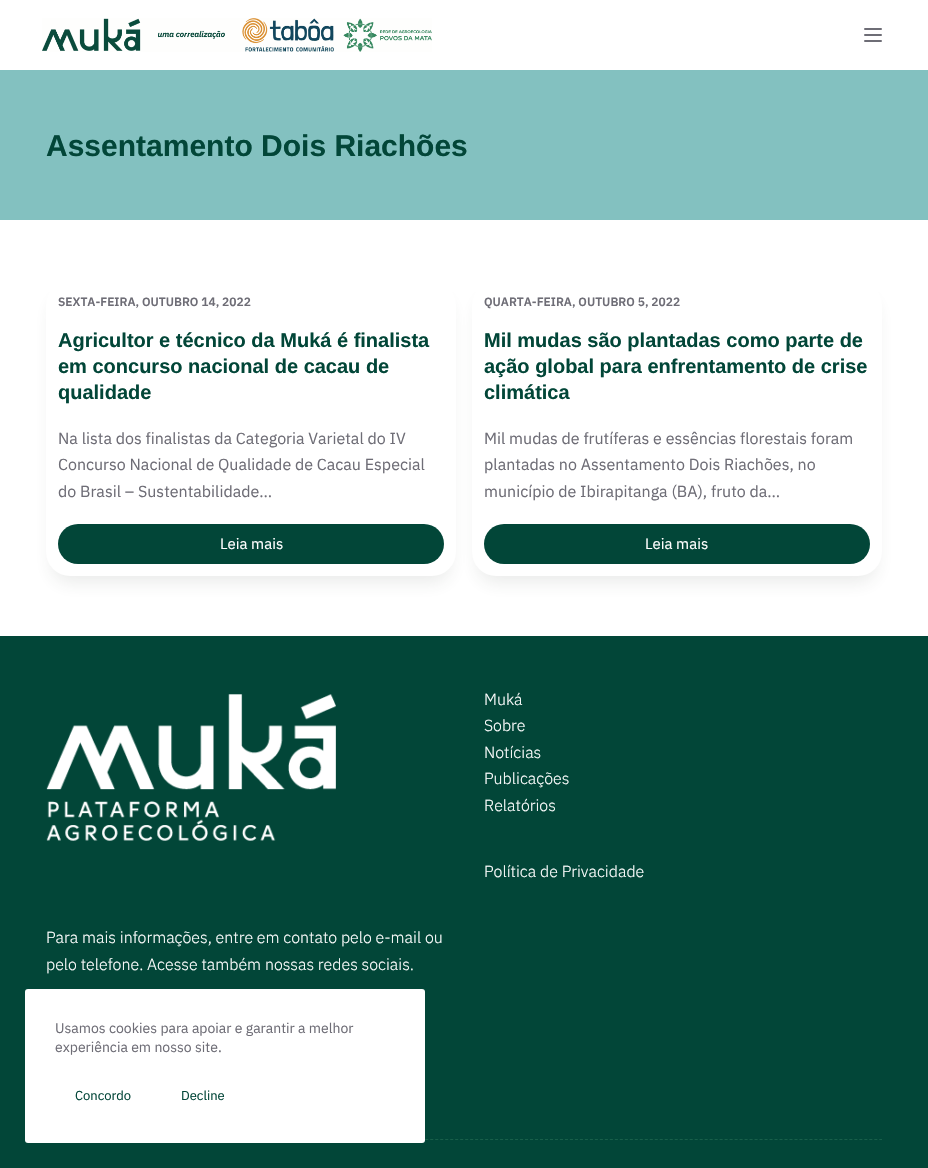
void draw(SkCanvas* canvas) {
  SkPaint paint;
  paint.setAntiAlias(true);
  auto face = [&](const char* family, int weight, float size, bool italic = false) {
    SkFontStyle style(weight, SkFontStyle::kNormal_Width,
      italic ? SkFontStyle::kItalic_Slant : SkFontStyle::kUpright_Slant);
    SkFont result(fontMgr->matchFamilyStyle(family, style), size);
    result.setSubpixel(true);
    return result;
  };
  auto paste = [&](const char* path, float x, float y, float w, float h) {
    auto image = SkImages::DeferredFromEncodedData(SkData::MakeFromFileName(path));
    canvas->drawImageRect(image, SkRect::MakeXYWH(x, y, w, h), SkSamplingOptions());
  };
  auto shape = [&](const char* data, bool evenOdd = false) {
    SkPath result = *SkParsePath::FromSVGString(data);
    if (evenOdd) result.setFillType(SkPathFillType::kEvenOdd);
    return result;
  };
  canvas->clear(0xffffffff);
  paste("img/1.png", 42, 18, 390, 34);
  paint.setColor(0xff6e6d76);
  canvas->drawRoundRect(SkRect::MakeXYWH(864, 28, 18, 2), 1, 1, paint);
  canvas->drawRoundRect(SkRect::MakeXYWH(864, 34, 18, 2), 1, 1, paint);
  canvas->drawRoundRect(SkRect::MakeXYWH(864, 40, 18, 2), 1, 1, paint);
  paint.setColor(0xff83c1c0);
  canvas->drawRect(SkRect::MakeXYWH(0, 70, 928, 150), paint);
  paint.setColor(0x1c333d3b);
  paint.setMaskFilter(SkMaskFilter::MakeBlur(kNormal_SkBlurStyle, 9));
  canvas->drawRoundRect(SkRect::MakeXYWH(52, 298, 398, 284), 18, 18, paint);
  paint.setMaskFilter(nullptr);
  paint.setColor(0xffffffff);
  canvas->drawRoundRect(SkRect::MakeXYWH(46, 280, 410, 296), 24, 24, paint);
  paint.setColor(0xff024638);
  canvas->drawRoundRect(SkRect::MakeXYWH(58, 524, 386, 40), 20, 20, paint);
  paint.setColor(0x1c333d3b);
  paint.setMaskFilter(SkMaskFilter::MakeBlur(kNormal_SkBlurStyle, 9));
  canvas->drawRoundRect(SkRect::MakeXYWH(478, 298, 398, 284), 18, 18, paint);
  paint.setMaskFilter(nullptr);
  paint.setColor(0xffffffff);
  canvas->drawRoundRect(SkRect::MakeXYWH(472, 280, 410, 296), 24, 24, paint);
  paint.setColor(0xff024638);
  canvas->drawRoundRect(SkRect::MakeXYWH(484, 524, 386, 40), 20, 20, paint);
  canvas->drawRect(SkRect::MakeXYWH(0, 636, 928, 532), paint);
  paste("img/2.png", 46, 694, 290, 147);
  paint.setStroke(true);
  paint.setStrokeWidth(1);
  paint.setColor(0xff185f4a);
  paint.setPathEffect(SkDashPathEffect::Make({{3, 1.99f}}, 0));
  canvas->drawPath(shape("M46 1139.5H882"), paint);
  paint.setPathEffect(nullptr);
  paint.setStroke(false);
  paint.setColor(0xffffffff);
  canvas->drawRoundRect(SkRect::MakeXYWH(25, 989, 400, 154), 3, 3, paint);
  auto f0 = face("Liberation Sans", 700, 30);
  paint.setColor(0xff024638);
  canvas->drawString("Assentamento Dois Riachões", 46, 156, f0, paint);
  auto f1 = face("IBM Plex Sans", 600, 12);
  paint.setColor(0xff6e6d76);
  canvas->drawString("SEXTA-FEIRA, OUTUBRO 14, 2022", 58, 306, f1, paint);
  auto f2 = face("Liberation Sans", 700, 20);
  paint.setColor(0xff024638);
  {
    const struct { const char* s; float x, y; } items[] = {
      {"Agricultor e técnico da Muká é finalista", 58, 347},
      {"em concurso nacional de cacau de", 58, 373},
      {"qualidade", 58, 399},
    };
    for (auto [s, x, y] : items) {
      canvas->drawString(s, x, y, f2, paint);
    }
  }
  auto f3 = face("IBM Plex Sans", 400, 16);
  paint.setColor(0xff6e6d76);
  {
    const struct { const char* s; float x, y; } items[] = {
      {"Na lista dos finalistas da Categoria Varietal do IV", 58, 444},
      {"Concurso Nacional de Qualidade de Cacau Especial", 58, 470},
      {"do Brasil – Sustentabilidade…", 58, 497},
    };
    for (auto [s, x, y] : items) {
      canvas->drawString(s, x, y, f3, paint);
    }
  }
  auto f4 = face("IBM Plex Sans", 400, 15);
  paint.setColor(0xffffffff);
  canvas->drawString("Leia mais", 220, 549, f4, paint);
  paint.setColor(0xff6e6d76);
  canvas->drawString("QUARTA-FEIRA, OUTUBRO 5, 2022", 484, 306, f1, paint);
  paint.setColor(0xff024638);
  {
    const struct { const char* s; float x, y; } items[] = {
      {"Mil mudas são plantadas como parte de", 484, 347},
      {"ação global para enfrentamento de crise", 484, 373},
      {"climática", 484, 399},
    };
    for (auto [s, x, y] : items) {
      canvas->drawString(s, x, y, f2, paint);
    }
  }
  paint.setColor(0xff6e6d76);
  {
    const struct { const char* s; float x, y; } items[] = {
      {"Mil mudas de frutíferas e essências florestais foram", 484, 444},
      {"plantadas no Assentamento Dois Riachões, no", 484, 470},
      {"município de Ibirapitanga (BA), fruto da…", 484, 497},
    };
    for (auto [s, x, y] : items) {
      canvas->drawString(s, x, y, f3, paint);
    }
  }
  paint.setColor(0xffffffff);
  canvas->drawString("Leia mais", 645, 549, f4, paint);
  auto f5 = face("IBM Plex Sans", 300, 16);
  {
    const struct { const char* s; float x, y; } items[] = {
      {"Muká", 484, 705},
      {"Sobre", 484, 731},
      {"Notícias", 484, 758},
      {"Publicações", 484, 784},
      {"Relatórios", 484, 811},
      {"Política de Privacidade", 484, 877},
      {"Para mais informações, entre em contato pelo e-mail ou", 46, 943},
      {"pelo telefone. Acesse também nossas redes sociais.", 46, 970},
    };
    for (auto [s, x, y] : items) {
      canvas->drawString(s, x, y, f5, paint);
    }
  }
  auto f6 = face("IBM Plex Sans", 400, 14);
  paint.setColor(0xff6e6d76);
  canvas->drawString("Usamos cookies para apoiar e garantir a melhor", 55, 1033, f6, paint);
  canvas->drawString("experiência em nosso site.", 55, 1052, f6, paint);
  auto f7 = face("IBM Plex Sans", 400, 13);
  paint.setColor(0xff024638);
  canvas->drawString("Concordo", 75, 1100, f7, paint);
  canvas->drawString("Decline", 181, 1100, f7, paint);
}
